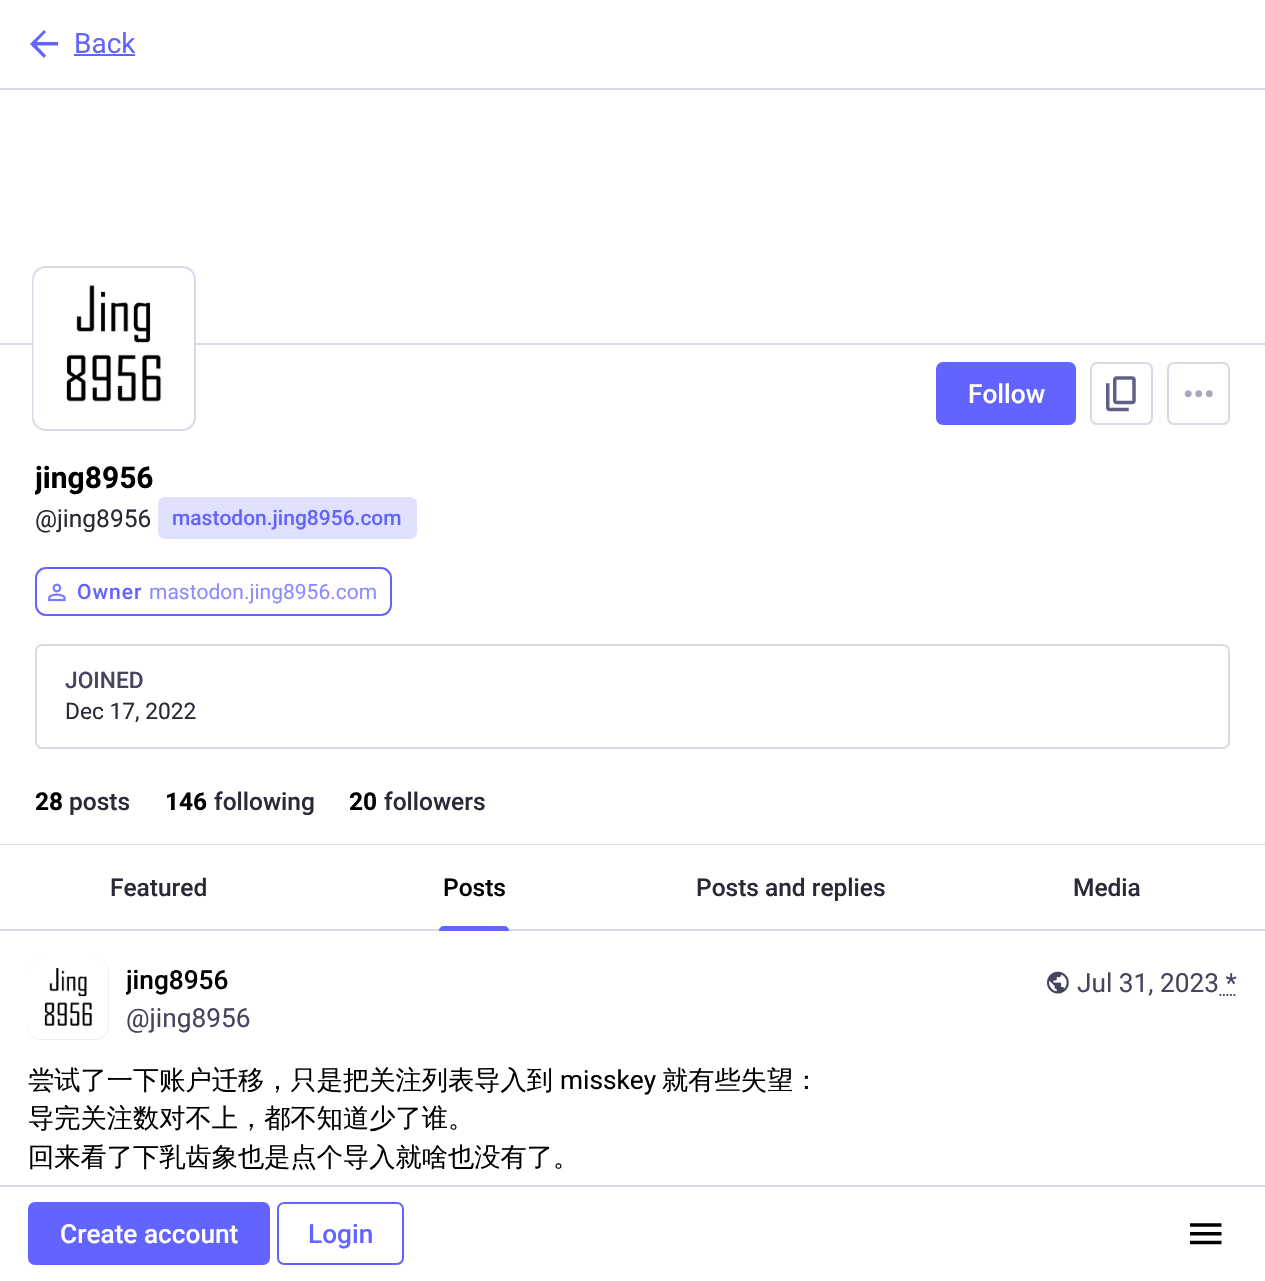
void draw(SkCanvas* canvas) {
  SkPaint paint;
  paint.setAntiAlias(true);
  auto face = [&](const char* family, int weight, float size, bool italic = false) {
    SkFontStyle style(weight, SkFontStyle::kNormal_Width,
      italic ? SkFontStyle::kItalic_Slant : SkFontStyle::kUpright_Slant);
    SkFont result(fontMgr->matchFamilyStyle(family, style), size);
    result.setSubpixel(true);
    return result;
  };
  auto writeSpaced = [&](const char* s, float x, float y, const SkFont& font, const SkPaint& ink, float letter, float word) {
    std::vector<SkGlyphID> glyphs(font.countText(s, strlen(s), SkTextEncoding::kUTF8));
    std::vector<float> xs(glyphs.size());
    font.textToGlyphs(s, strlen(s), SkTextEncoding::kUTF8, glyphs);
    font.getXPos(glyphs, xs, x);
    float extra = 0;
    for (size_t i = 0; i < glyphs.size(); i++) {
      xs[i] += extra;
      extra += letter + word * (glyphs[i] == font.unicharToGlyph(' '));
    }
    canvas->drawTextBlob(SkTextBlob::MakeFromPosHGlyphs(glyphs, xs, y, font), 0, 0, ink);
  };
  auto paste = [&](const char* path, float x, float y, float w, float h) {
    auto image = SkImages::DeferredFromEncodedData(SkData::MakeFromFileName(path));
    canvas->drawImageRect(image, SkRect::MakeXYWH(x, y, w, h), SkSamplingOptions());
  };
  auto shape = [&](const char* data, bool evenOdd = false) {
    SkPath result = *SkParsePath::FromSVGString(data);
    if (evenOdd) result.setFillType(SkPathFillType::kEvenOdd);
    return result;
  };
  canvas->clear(0xffffffff);
  paint.setColor(0xffd9d9e8);
  canvas->drawRect(SkRect::MakeXYWH(0, 88, 1265, 2), paint);
  paint.setColor(0xff6364ff);
  canvas->drawPath(shape("M36.5 45.5L46 55.5L44 58L30 44L44 30L46 32L36.5 42H58V45.5Z"), paint);
  {
    const struct { float x, y, w, h; SkColor color; } items[] = {
      {74, 54, 61, 2, 0xff6364ff},
      {0, 343, 1265, 2, 0xffd9d9e8},
      {0, 844, 1265, 1, 0xffd9d9e8},
    };
    for (auto [x, y, w, h, color] : items) {
      paint.setColor(color);
      canvas->drawRect(SkRect::MakeXYWH(x, y, w, h), paint);
    }
  }
  paint.setColor(0xffffffff);
  canvas->drawRoundRect(SkRect::MakeXYWH(33, 267, 162, 163), 13, 13, paint);
  paint.setStroke(true);
  paint.setStrokeWidth(2);
  paint.setColor(0xffd9d9e8);
  canvas->drawRoundRect(SkRect::MakeXYWH(33, 267, 162, 163), 13, 13, paint);
  paste("img/1.png", 33, 268, 161, 155);
  paint.setStroke(false);
  paint.setColor(0xff6364ff);
  canvas->drawRoundRect(SkRect::MakeXYWH(936, 362, 140, 63), 7, 7, paint);
  paint.setStroke(true);
  paint.setColor(0xffd9d9e8);
  canvas->drawRoundRect(SkRect::MakeXYWH(1091, 363, 61, 61), 6, 6, paint);
  paste("img/2.png", 1106, 376, 30, 36);
  canvas->drawRoundRect(SkRect::MakeXYWH(1168, 363, 61, 61), 6, 6, paint);
  paste("img/3.png", 1184, 390, 29, 8);
  paint.setStroke(false);
  paint.setColor(0xffe0e0ff);
  canvas->drawRoundRect(SkRect::MakeXYWH(158, 497, 259, 42), 7, 7, paint);
  paint.setStroke(true);
  paint.setColor(0xff6364ff);
  canvas->drawRoundRect(SkRect::MakeXYWH(36, 568, 355, 47), 10, 10, paint);
  paste("img/4.png", 48, 583, 18, 19);
  paint.setColor(0xffd9d9e8);
  canvas->drawRoundRect(SkRect::MakeXYWH(36, 645, 1193, 103), 6, 6, paint);
  paint.setStroke(false);
  canvas->drawRect(SkRect::MakeXYWH(0, 929, 1265, 2), paint);
  paint.setColor(0xff6364ff);
  canvas->drawPath(shape("M444 926H504C507 926 509 928 509 931H439C439 928 441 926 444 926Z"), paint);
  paint.setColor(0xffe8e6f0);
  canvas->drawRoundRect(SkRect::MakeXYWH(28, 959, 81, 81), 14, 14, paint);
  paste("img/5.png", 28, 959, 81, 81);
  paste("img/6.png", 1046, 971, 23, 23);
  paint.setStroke(true);
  paint.setStrokeWidth(1.8f);
  paint.setColor(0xff45455f);
  paint.setPathEffect(SkDashPathEffect::Make({{1.75f, 1.75f}}, 0));
  canvas->drawPath(shape("M1219.5 995H1237"), paint);
  paint.setPathEffect(nullptr);
  paint.setStroke(false);
  paint.setColor(0xffd9d9e8);
  canvas->drawRect(SkRect::MakeXYWH(0, 1185, 1265, 2), paint);
  paint.setColor(0xff6364ff);
  canvas->drawRoundRect(SkRect::MakeXYWH(28, 1202, 242, 63), 7, 7, paint);
  paint.setStroke(true);
  paint.setStrokeWidth(2);
  canvas->drawRoundRect(SkRect::MakeXYWH(278, 1203, 125, 61), 6, 6, paint);
  paste("img/7.png", 1190, 1223, 32, 22);
  auto f0 = face("Roboto", 400, 28);
  paint.setStroke(false);
  canvas->drawString("Back", 74, 53, f0, paint);
  auto f1 = face("Roboto", 500, 26.25f);
  paint.setColor(0xffffffff);
  canvas->drawString("Follow", 968, 403, f1, paint);
  canvas->save();
  canvas->clipRect(SkRect::MakeXYWH(35, 459, 1195, 80));
  auto f2 = face("Roboto", 700, 30);
  paint.setColor(0xff000000);
  canvas->drawString("jing8956", 35, 488, f2, paint);
  canvas->restore();
  auto f3 = face("Roboto", 400, 24.5f);
  paint.setColor(0xff292938);
  canvas->drawString("@jing8956", 35, 527, f3, paint);
  auto f4 = face("Roboto", 500, 21);
  paint.setColor(0xff6364ff);
  canvas->drawString("mastodon.jing8956.com", 172, 525, f4, paint);
  writeSpaced("Owner", 77, 599, f4, paint, 1, 0);
  auto f5 = face("Roboto", 400, 21);
  paint.setColor(0xff8a8bff);
  canvas->drawString("mastodon.jing8956.com", 149, 599, f5, paint);
  auto f6 = face("Roboto", 500, 22.75f);
  paint.setColor(0xff45455f);
  canvas->drawString("JOINED", 65, 688, f6, paint);
  auto f7 = face("Roboto", 400, 22.75f);
  paint.setColor(0xff292938);
  canvas->drawString("Dec 17, 2022", 65, 719, f7, paint);
  auto f8 = face("Roboto", 700, 24.5f);
  paint.setColor(0xff000000);
  canvas->drawString("28", 35, 810, f8, paint);
  auto f9 = face("Roboto", 500, 24.5f);
  paint.setColor(0xff292938);
  canvas->drawString("posts", 69, 810, f9, paint);
  paint.setColor(0xff000000);
  canvas->drawString("146", 165, 810, f8, paint);
  paint.setColor(0xff292938);
  canvas->drawString("following", 214, 810, f9, paint);
  paint.setColor(0xff000000);
  canvas->drawString("20", 349, 810, f8, paint);
  paint.setColor(0xff292938);
  canvas->drawString("followers", 384, 810, f9, paint);
  canvas->drawString("Featured", 110, 896, f9, paint);
  paint.setColor(0xff000000);
  canvas->drawString("Posts", 443, 896, f9, paint);
  paint.setColor(0xff292938);
  canvas->drawString("Posts and replies", 696, 896, f9, paint);
  canvas->drawString("Media", 1073, 896, f9, paint);
  canvas->save();
  canvas->clipRect(SkRect::MakeXYWH(126, 961, 124, 77));
  paint.setColor(0xff000000);
  canvas->drawString("jing8956", 126, 989, f1, paint);
  canvas->restore();
  auto f10 = face("Roboto", 400, 26.25f);
  paint.setColor(0xff45455f);
  canvas->drawString("@jing8956", 126, 1027, f10, paint);
  canvas->drawString("Jul 31, 2023 *", 1077, 992, f10, paint);
  auto f11 = face("WenQuanYi Zen Hei", 500, 26.25f);
  paint.setColor(0xff000000);
  canvas->drawString("尝试了一下账户迁移，只是把关注列表导入到", 28, 1089, f11, paint);
  canvas->drawString("misskey", 560, 1089, f10, paint);
  {
    const struct { const char* s; float x, y; } items[] = {
      {"就有些失望：", 662, 1089},
      {"导完关注数对不上，都不知道少了谁。", 28, 1127},
      {"回来看了下乳齿象也是点个导入就啥也没有了。", 28, 1166},
    };
    for (auto [s, x, y] : items) {
      canvas->drawString(s, x, y, f11, paint);
    }
  }
  paint.setColor(0xffffffff);
  canvas->drawString("Create account", 60, 1243, f1, paint);
  paint.setColor(0xff6364ff);
  canvas->drawString("Login", 308, 1243, f1, paint);
}
